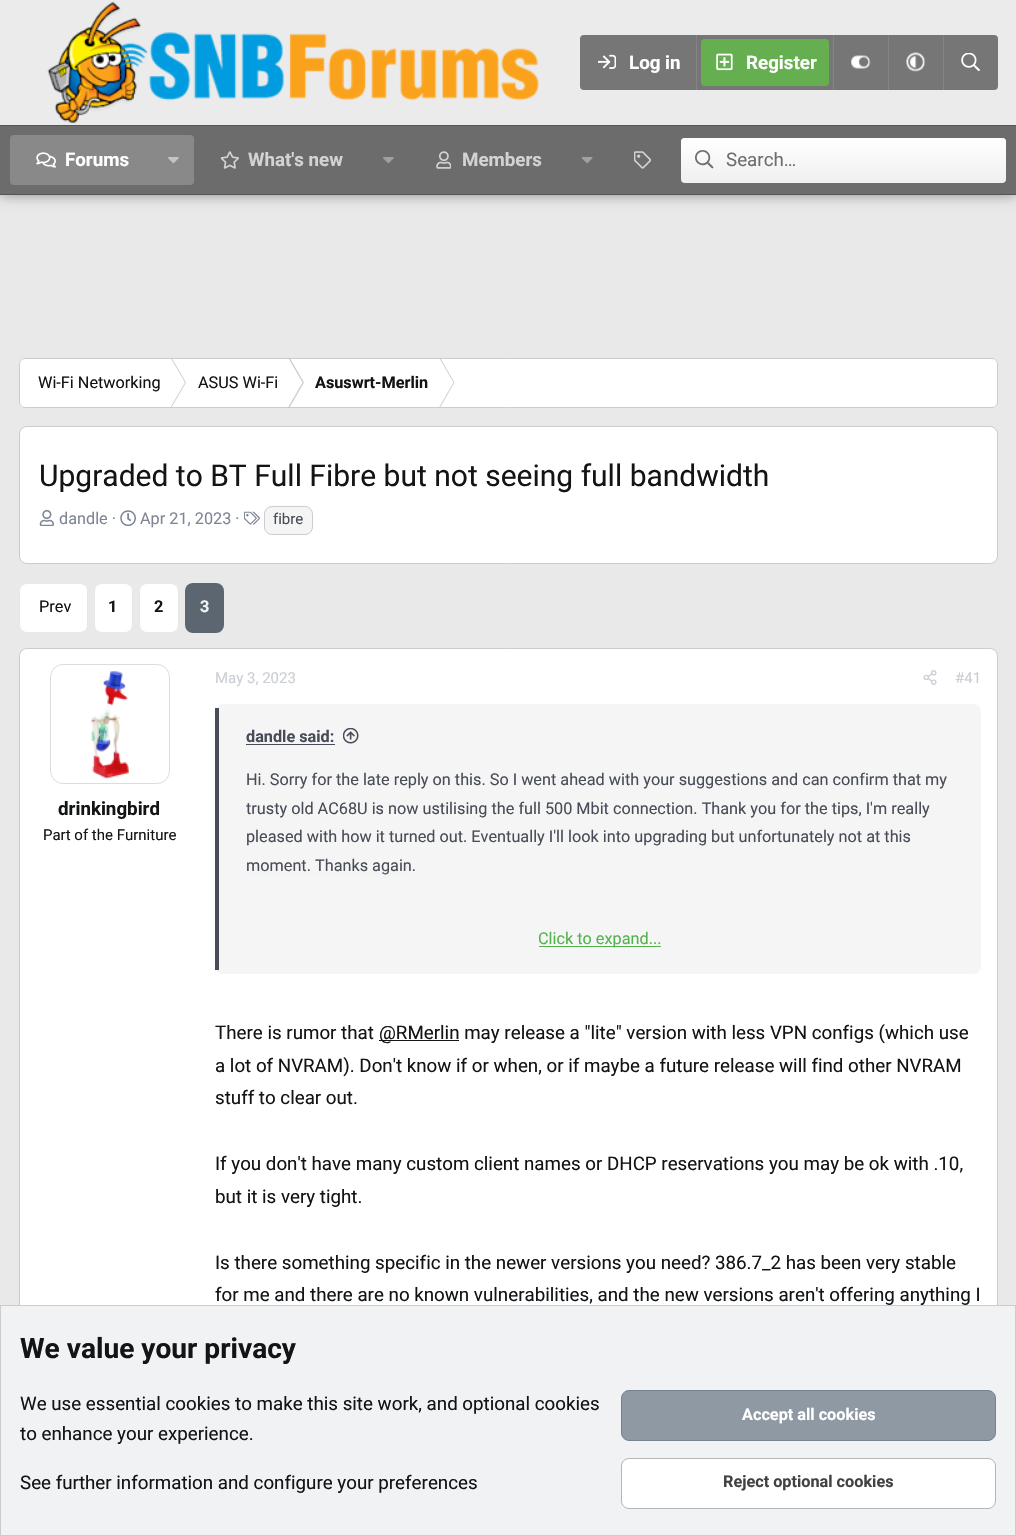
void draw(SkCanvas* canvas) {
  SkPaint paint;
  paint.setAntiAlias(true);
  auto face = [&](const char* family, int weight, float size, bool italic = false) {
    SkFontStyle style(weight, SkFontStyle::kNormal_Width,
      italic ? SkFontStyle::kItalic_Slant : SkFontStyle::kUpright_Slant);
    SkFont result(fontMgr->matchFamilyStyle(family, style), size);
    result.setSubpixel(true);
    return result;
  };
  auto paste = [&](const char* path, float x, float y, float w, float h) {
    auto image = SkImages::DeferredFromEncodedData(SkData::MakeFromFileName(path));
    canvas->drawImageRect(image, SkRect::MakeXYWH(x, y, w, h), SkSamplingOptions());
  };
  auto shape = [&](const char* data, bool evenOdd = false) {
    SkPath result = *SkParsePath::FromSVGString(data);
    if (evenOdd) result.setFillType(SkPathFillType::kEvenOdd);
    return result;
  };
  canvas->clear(0xffe9e9e9);
  paint.setColor(0x59000000);
  paint.setMaskFilter(SkMaskFilter::MakeBlur(kNormal_SkBlurStyle, 6));
  canvas->drawRect(SkRect::MakeXYWH(0, 1, 1016, 195), paint);
  paint.setMaskFilter(nullptr);
  paint.setColor(0xffebebeb);
  canvas->drawRect(SkRect::MakeXYWH(0, 0, 1016, 125), paint);
  paste("img/1.png", 47, 1, 492, 123);
  paint.setColor(0xff767676);
  canvas->drawRoundRect(SkRect::MakeXYWH(580, 35, 418, 55), 4, 4, paint);
  paste("img/2.png", 598, 54, 18, 15);
  paint.setColor(0xff848484);
  canvas->drawRect(SkRect::MakeXYWH(696, 35, 1, 55), paint);
  paint.setColor(0xff66af50);
  canvas->drawRoundRect(SkRect::MakeXYWH(701, 39, 128, 47), 4, 4, paint);
  paste("img/3.png", 716, 53, 17, 18);
  paint.setColor(0xff848484);
  canvas->drawRect(SkRect::MakeXYWH(833, 35, 1, 55), paint);
  paste("img/4.png", 851, 55, 20, 14);
  canvas->drawRect(SkRect::MakeXYWH(888, 35, 1, 55), paint);
  paste("img/5.png", 906, 52, 19, 20);
  canvas->drawRect(SkRect::MakeXYWH(943, 35, 1, 55), paint);
  paste("img/6.png", 961, 53, 19, 18);
  {
    const struct { float x, y, w, h; SkColor color; } items[] = {
      {0, 126, 1016, 68, 0xff6c6c6c},
      {0, 125, 1016, 1, 0xff565656},
      {0, 194, 1016, 1, 0xff565656},
    };
    for (auto [x, y, w, h, color] : items) {
      paint.setColor(color);
      canvas->drawRect(SkRect::MakeXYWH(x, y, w, h), paint);
    }
  }
  paint.setColor(0xff898989);
  canvas->drawRoundRect(SkRect::MakeXYWH(10, 135, 184, 50), 4, 4, paint);
  paste("img/7.png", 36, 152, 20, 16);
  paste("img/8.png", 168, 157, 11, 7);
  paste("img/9.png", 220, 151, 19, 18);
  paste("img/10.png", 383, 157, 11, 7);
  paste("img/11.png", 436, 151, 15, 18);
  paste("img/12.png", 581, 157, 12, 6);
  paste("img/13.png", 634, 151, 17, 18);
  paint.setColor(0xfff0f0f0);
  canvas->drawRoundRect(SkRect::MakeXYWH(681, 138, 325, 45), 4, 4, paint);
  {
    const SkColor colors[] = {0xffffffff, 0x00ffffff};
    const float stops[] = {0, 1};
    const SkPoint ends[] = {{844, 137}, {844, 183}};
    paint.setShader(SkGradientShader::MakeLinear(ends, colors, stops, 2, SkTileMode::kClamp));
    paint.setAlpha(255);
  }
  canvas->drawRoundRect(SkRect::MakeXYWH(681, 138, 325, 45), 4, 4, paint);
  paste("img/14.png", 695, 150, 19, 19);
  paint.setShader(nullptr);
  paint.setColor(0xffffffff);
  canvas->drawRoundRect(SkRect::MakeXYWH(19, 358, 979, 50), 6, 6, paint);
  paint.setColor(0xffcccccc);
  canvas->drawPath(shape("M170.5 357.5H171.5L186 382.5H185Z"), paint);
  canvas->drawPath(shape("M185 382.5H186L171.5 407.5H170.5Z"), paint);
  canvas->drawPath(shape("M288 357.5H289.5L304 382.5H302.5Z"), paint);
  paint.setColor(0xffffffff);
  canvas->drawPath(shape("M301.5 382.5H302.5L288 407.5H287Z"), paint);
  paint.setColor(0xffcccccc);
  canvas->drawPath(shape("M302.5 382.5H304L289.5 407.5H288Z"), paint);
  canvas->drawPath(shape("M439 357.5H440L454.5 382.5H453.5Z"), paint);
  paint.setColor(0xffffffff);
  canvas->drawPath(shape("M452 382.5H453.5L439 407.5H437.5Z"), paint);
  paint.setColor(0xffcccccc);
  canvas->drawPath(shape("M453.5 382.5H454.5L440 407.5H439Z"), paint);
  paint.setStroke(true);
  paint.setStrokeWidth(1);
  canvas->drawRoundRect(SkRect::MakeXYWH(19.5f, 358.5f, 978, 49), 5.5f, 5.5f, paint);
  paint.setStroke(false);
  paint.setColor(0xffffffff);
  canvas->drawRoundRect(SkRect::MakeXYWH(19.5f, 426.5f, 978, 137), 7.5f, 7.5f, paint);
  paint.setStroke(true);
  paint.setColor(0xffcccccc);
  canvas->drawRoundRect(SkRect::MakeXYWH(19.5f, 426.5f, 978, 137), 7.5f, 7.5f, paint);
  paste("img/15.png", 39, 510, 15, 16);
  paste("img/16.png", 120, 510, 16, 16);
  paste("img/17.png", 244, 511, 16, 14);
  paint.setStroke(false);
  paint.setColor(0xfff5f5f5);
  canvas->drawRoundRect(SkRect::MakeXYWH(264.5f, 506.5f, 48, 28), 7.5f, 7.5f, paint);
  paint.setStroke(true);
  paint.setColor(0xffcccccc);
  canvas->drawRoundRect(SkRect::MakeXYWH(264.5f, 506.5f, 48, 28), 7.5f, 7.5f, paint);
  paint.setStroke(false);
  paint.setColor(0xffffffff);
  canvas->drawRoundRect(SkRect::MakeXYWH(19, 583, 69, 50), 8, 8, paint);
  paint.setStroke(true);
  paint.setColor(0x1a121416);
  canvas->drawRoundRect(SkRect::MakeXYWH(19.5f, 583.5f, 68, 49), 7.5f, 7.5f, paint);
  paint.setStroke(false);
  paint.setColor(0xffffffff);
  canvas->drawRoundRect(SkRect::MakeXYWH(94, 583, 39, 50), 8, 8, paint);
  paint.setStroke(true);
  paint.setColor(0x1a121416);
  canvas->drawRoundRect(SkRect::MakeXYWH(94.5f, 583.5f, 38, 49), 7.5f, 7.5f, paint);
  paint.setStroke(false);
  paint.setColor(0xffffffff);
  canvas->drawRoundRect(SkRect::MakeXYWH(139, 583, 40, 50), 8, 8, paint);
  paint.setStroke(true);
  paint.setColor(0x1a121416);
  canvas->drawRoundRect(SkRect::MakeXYWH(139.5f, 583.5f, 39, 49), 7.5f, 7.5f, paint);
  paint.setStroke(false);
  paint.setColor(0xff5c6670);
  canvas->drawRoundRect(SkRect::MakeXYWH(185, 583, 39, 50), 8, 8, paint);
  paint.setColor(0xffffffff);
  canvas->drawRoundRect(SkRect::MakeXYWH(19.5f, 648.5f, 978, 791), 7.5f, 7.5f, paint);
  paint.setStroke(true);
  paint.setColor(0xffcccccc);
  canvas->drawRoundRect(SkRect::MakeXYWH(19.5f, 648.5f, 978, 791), 7.5f, 7.5f, paint);
  paste("img/18.png", 90, 671, 39, 108);
  paint.setColor(0xffdbdcdc);
  canvas->drawRoundRect(SkRect::MakeXYWH(50.5f, 664.5f, 119, 119), 12.5f, 12.5f, paint);
  paste("img/19.png", 923, 670, 14, 15);
  paint.setStroke(false);
  paint.setColor(0xfff5f5f5);
  canvas->drawRoundRect(SkRect::MakeXYWH(215, 704, 766, 270), 8, 8, paint);
  paint.setColor(0xff474c57);
  canvas->drawRect(SkRect::MakeXYWH(215, 708, 4, 262), paint);
  canvas->drawRect(SkRect::MakeXYWH(246, 744, 89, 1), paint);
  paste("img/20.png", 343, 728, 16, 16);
  paint.setColor(0xff52b34d);
  canvas->drawRect(SkRect::MakeXYWH(539, 946, 122, 1), paint);
  paint.setColor(0xff121416);
  canvas->drawRect(SkRect::MakeXYWH(379, 1040, 80, 1), paint);
  paint.setColor(0xfff1f2f4);
  canvas->drawRect(SkRect::MakeXYWH(0.5f, 1305.5f, 1015, 230), paint);
  paint.setStroke(true);
  paint.setColor(0xffcccccc);
  canvas->drawRect(SkRect::MakeXYWH(0.5f, 1305.5f, 1015, 230), paint);
  paint.setStroke(false);
  paint.setColor(0xff8f99a3);
  canvas->drawRoundRect(SkRect::MakeXYWH(621.5f, 1390.5f, 374, 50), 7.5f, 7.5f, paint);
  paint.setStroke(true);
  paint.setColor(0xff76828f);
  canvas->drawRoundRect(SkRect::MakeXYWH(621.5f, 1390.5f, 374, 50), 7.5f, 7.5f, paint);
  paint.setStroke(false);
  paint.setColor(0xffffffff);
  canvas->drawRoundRect(SkRect::MakeXYWH(621.5f, 1458.5f, 374, 50), 7.5f, 7.5f, paint);
  paint.setStroke(true);
  paint.setColor(0xffb5b5b5);
  canvas->drawRoundRect(SkRect::MakeXYWH(621.5f, 1458.5f, 374, 50), 7.5f, 7.5f, paint);
  auto f0 = face("Roboto", 700, 18.75f);
  paint.setStroke(false);
  paint.setColor(0xffffffff);
  {
    const struct { const char* s; float x, y; } items[] = {
      {"Log in", 629, 69},
      {"Register", 746, 69},
      {"Forums", 65, 166},
    };
    for (auto [s, x, y] : items) {
      canvas->drawString(s, x, y, f0, paint);
    }
  }
  paint.setColor(0xffd3d3d3);
  canvas->drawString("What's new", 248, 166, f0, paint);
  canvas->drawString("Members", 462, 166, f0, paint);
  auto f1 = face("Roboto", 400, 18.75f);
  paint.setColor(0xff6e6e6e);
  canvas->drawString("Search…", 726, 166, f1, paint);
  auto f2 = face("Roboto", 400, 16.25f);
  paint.setColor(0xff121416);
  canvas->drawString("Wi-Fi Networking", 38, 388, f2, paint);
  canvas->drawString("ASUS Wi-Fi", 198, 388, f2, paint);
  auto f3 = face("Roboto", 700, 16.25f);
  canvas->drawString("Asuswrt-Merlin", 315, 388, f3, paint);
  auto f4 = face("Roboto", 400, 30);
  canvas->drawString("Upgraded to BT Full Fibre but not seeing full bandwidth", 39, 486, f4, paint);
  paint.setColor(0xff7e8595);
  canvas->drawString("dandle ·", 59, 524, f2, paint);
  canvas->drawString("Apr 21, 2023 ·", 140, 524, f2, paint);
  auto f5 = face("Roboto", 400, 15);
  paint.setColor(0xff474c57);
  canvas->drawString("fibre", 273, 524, f5, paint);
  paint.setColor(0xff121416);
  canvas->drawString("Prev", 39, 612, f2, paint);
  canvas->drawString("1", 108, 612, f3, paint);
  canvas->drawString("2", 154, 612, f3, paint);
  paint.setColor(0xfff1f2f4);
  canvas->drawString("3", 200, 612, f3, paint);
  paint.setColor(0xff121416);
  canvas->drawString("drinkingbird", 58, 815, f0, paint);
  canvas->drawString("Part of the Furniture", 43, 840, f5, paint);
  paint.setColor(0xffcbced5);
  canvas->drawString("May 3, 2023", 215, 683, f5, paint);
  canvas->drawString("#41", 955, 683, f5, paint);
  paint.setColor(0xff474c57);
  canvas->drawString("dandle said:", 246, 742, f3, paint);
  {
    const struct { const char* s; float x, y; } items[] = {
      {"Hi. Sorry for the late reply on this. So I went ahead with your suggestions and can confirm that my", 246, 785},
      {"trusty old AC68U is now ustilising the full 500 Mbit connection. Thank you for the tips, I'm really", 246, 814},
      {"pleased with how it turned out. Eventually I'll look into upgrading but unfortunately not at this", 246, 842},
      {"moment. Thanks again.", 246, 871},
    };
    for (auto [s, x, y] : items) {
      canvas->drawString(s, x, y, f2, paint);
    }
  }
  {
    const SkColor colors[] = {0x00f5f5f5, 0xfff5f5f5};
    const float stops[] = {0, 0.8f};
    const SkPoint ends[] = {{600, 868}, {600, 961}};
    paint.setShader(SkGradientShader::MakeLinear(ends, colors, stops, 2, SkTileMode::kClamp));
    paint.setAlpha(255);
  }
  canvas->drawRect(SkRect::MakeXYWH(247, 870, 168, 5), paint);
  paint.setShader(nullptr);
  paint.setColor(0xff52b34d);
  canvas->drawString("Click to expand...", 538, 944, f2, paint);
  paint.setColor(0xff121416);
  {
    const struct { const char* s; float x, y; } items[] = {
      {"There is rumor that", 215, 1039},
      {"@RMerlin may release a \"lite\" version with less VPN configs (which use", 379, 1039},
      {"a lot of NVRAM). Don't know if or when, or if maybe a future release will find other NVRAM", 215, 1072},
      {"stuff to clear out.", 215, 1104},
      {"If you don't have many custom client names or DHCP reservations you may be ok with .10,", 215, 1170},
      {"but it is very tight.", 215, 1203},
      {"Is there something specific in the newer versions you need? 386.7_2 has been very stable", 215, 1269},
      {"for me and there are no known vulnerabilities, and the new versions aren't offering anything I", 215, 1301},
    };
    for (auto [s, x, y] : items) {
      canvas->drawString(s, x, y, f1, paint);
    }
  }
  auto f6 = face("Roboto", 700, 28.1f);
  canvas->drawString("We value your privacy", 20, 1358, f6, paint);
  {
    const struct { const char* s; float x, y; } items[] = {
      {"We use essential cookies to make this site work, and optional cookies", 20, 1410},
      {"to enhance your experience.", 20, 1440},
      {"See further information and configure your preferences", 20, 1489},
    };
    for (auto [s, x, y] : items) {
      canvas->drawString(s, x, y, f1, paint);
    }
  }
  paint.setColor(0xffffffff);
  canvas->drawString("Accept all cookies", 742, 1420, f3, paint);
  paint.setColor(0xff424242);
  canvas->drawString("Reject optional cookies", 723, 1487, f3, paint);
}
